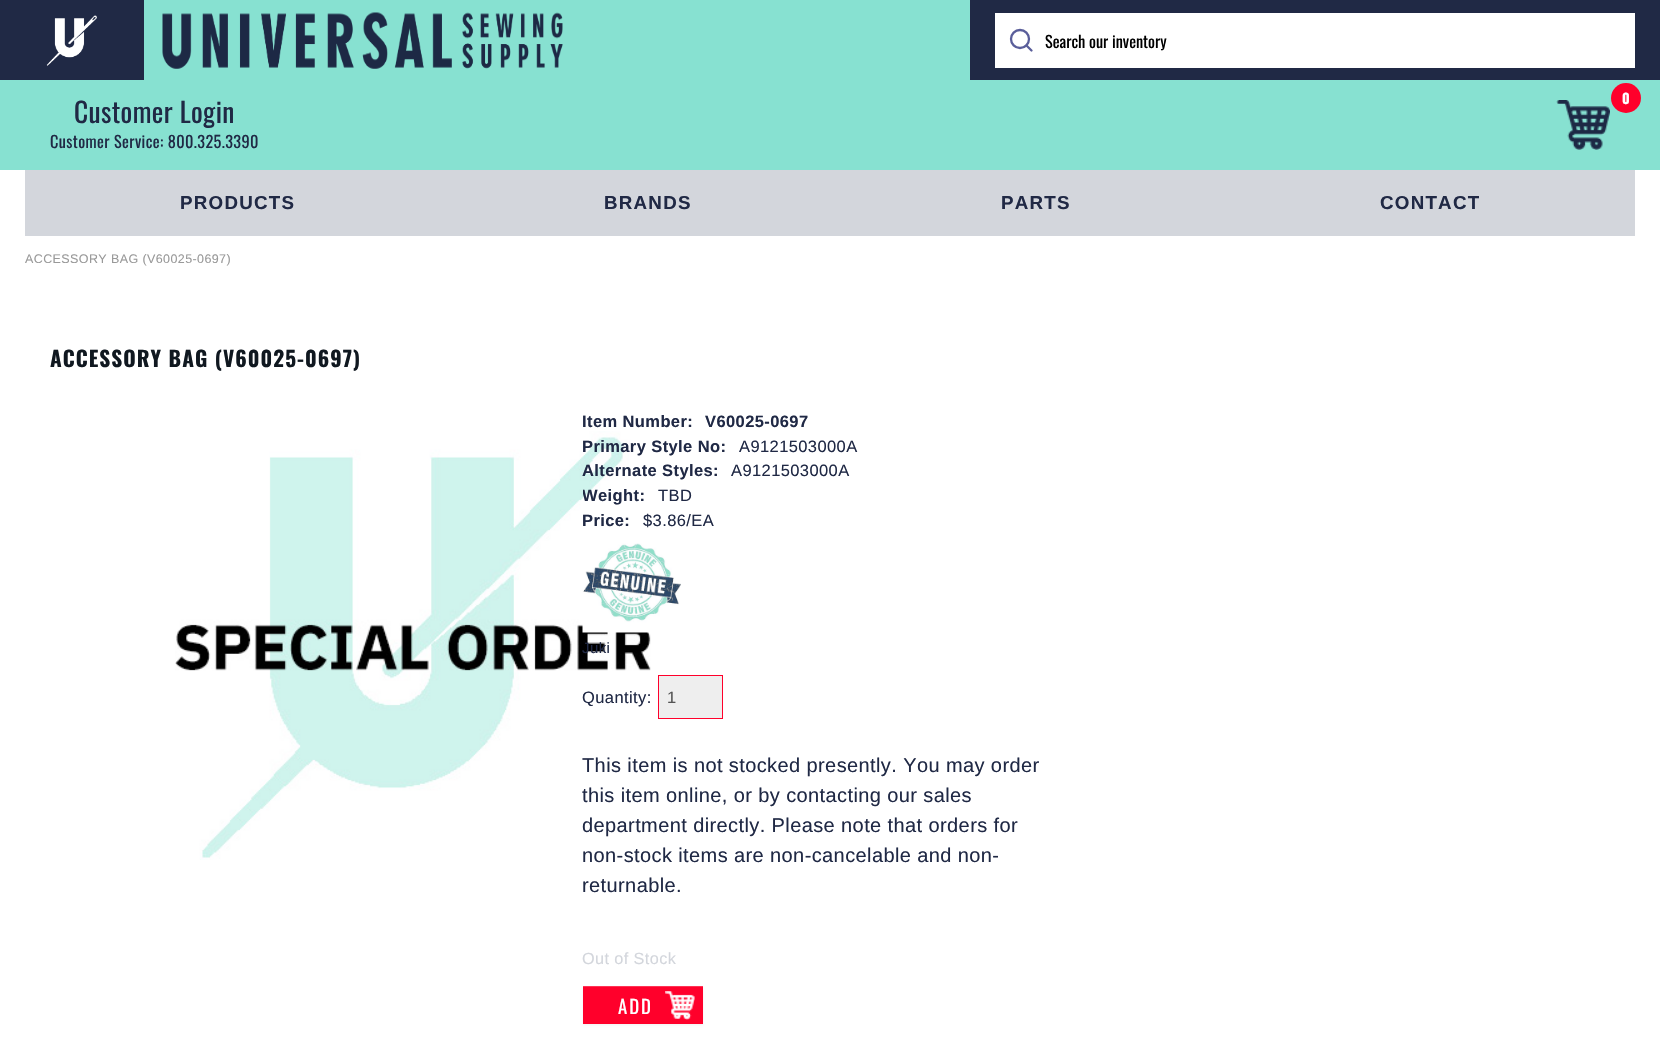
void draw(SkCanvas* canvas) {
  SkPaint paint;
  paint.setAntiAlias(true);
  auto face = [&](const char* family, int weight, float size, bool italic = false) {
    SkFontStyle style(weight, SkFontStyle::kNormal_Width,
      italic ? SkFontStyle::kItalic_Slant : SkFontStyle::kUpright_Slant);
    SkFont result(fontMgr->matchFamilyStyle(family, style), size);
    result.setSubpixel(true);
    return result;
  };
  auto writeSpaced = [&](const char* s, float x, float y, const SkFont& font, const SkPaint& ink, float letter, float word) {
    std::vector<SkGlyphID> glyphs(font.countText(s, strlen(s), SkTextEncoding::kUTF8));
    std::vector<float> xs(glyphs.size());
    font.textToGlyphs(s, strlen(s), SkTextEncoding::kUTF8, glyphs);
    font.getXPos(glyphs, xs, x);
    float extra = 0;
    for (size_t i = 0; i < glyphs.size(); i++) {
      xs[i] += extra;
      extra += letter + word * (glyphs[i] == font.unicharToGlyph(' '));
    }
    canvas->drawTextBlob(SkTextBlob::MakeFromPosHGlyphs(glyphs, xs, y, font), 0, 0, ink);
  };
  auto paste = [&](const char* path, float x, float y, float w, float h) {
    auto image = SkImages::DeferredFromEncodedData(SkData::MakeFromFileName(path));
    canvas->drawImageRect(image, SkRect::MakeXYWH(x, y, w, h), SkSamplingOptions());
  };
  auto shape = [&](const char* data, bool evenOdd = false) {
    SkPath result = *SkParsePath::FromSVGString(data);
    if (evenOdd) result.setFillType(SkPathFillType::kEvenOdd);
    return result;
  };
  canvas->clear(0xff87e1d1);
  paint.setColor(0xff202945);
  canvas->drawRect(SkRect::MakeXYWH(0, 0, 144, 80), paint);
  paste("img/1.png", 46, 15, 51, 51);
  paste("img/2.png", 162, 12, 401, 57);
  canvas->drawRect(SkRect::MakeXYWH(970, 0, 690, 80), paint);
  paint.setColor(0xffffffff);
  canvas->drawRect(SkRect::MakeXYWH(995, 13, 640, 55), paint);
  paint.setStroke(true);
  paint.setStrokeWidth(2.3f);
  paint.setColor(0xff5a5e9a);
  canvas->drawCircle(1020, 39, 9, paint);
  paint.setStrokeCap(SkPaint::kRound_Cap);
  paint.setStrokeJoin(SkPaint::kRound_Join);
  canvas->drawPath(shape("M1031.5 50.5L1026.5 45.5"), paint);
  paint.setStroke(false);
  paint.setColor(0xffff002b);
  canvas->drawCircle(1626, 98, 15, paint);
  paste("img/3.png", 1556, 100, 54, 50);
  paint.setColor(0xffffffff);
  canvas->drawRect(SkRect::MakeXYWH(0, 170, 1660, 867), paint);
  paint.setColor(0xffd3d6dc);
  canvas->drawRect(SkRect::MakeXYWH(25, 170, 1610, 66), paint);
  paste("img/4.png", 175, 431, 476, 429);
  paste("img/5.png", 582, 543, 99, 90);
  paint.setColor(0xffeeeeee);
  canvas->drawRect(SkRect::MakeXYWH(658.5f, 675.5f, 64, 43), paint);
  paint.setStroke(true);
  paint.setStrokeWidth(1);
  paint.setStrokeCap(SkPaint::kButt_Cap);
  paint.setStrokeJoin(SkPaint::kMiter_Join);
  paint.setColor(0xffff002b);
  canvas->drawRect(SkRect::MakeXYWH(658.5f, 675.5f, 64, 43), paint);
  paint.setStroke(false);
  paint.setColor(0x0d000000);
  paint.setMaskFilter(SkMaskFilter::MakeBlur(kNormal_SkBlurStyle, 1));
  canvas->drawRect(SkRect::MakeXYWH(583, 988, 120, 37), paint);
  paint.setMaskFilter(nullptr);
  paint.setColor(0xffff002b);
  canvas->drawRect(SkRect::MakeXYWH(583, 987, 120, 37), paint);
  paste("img/6.png", 665, 991, 30, 29);
  paint.setColor(0xffff3355);
  canvas->drawRect(SkRect::MakeXYWH(583, 986, 120, 1), paint);
  auto f0 = face("Oswald", 400, 16.25f);
  paint.setColor(0xff000000);
  canvas->drawString("Search our inventory", 1045, 48, f0, paint);
  auto f1 = face("Oswald", 700, 14);
  paint.setColor(0xffffffff);
  writeSpaced("0", 1622, 104, f1, paint, 0.4f, 0);
  auto f2 = face("Oswald", 400, 27.5f);
  paint.setColor(0xff202945);
  writeSpaced("Customer Login", 74, 123, f2, paint, 0.4f, 0);
  writeSpaced("Customer Service: 800.325.3390", 50, 148, f0, paint, 0.4f, 0);
  auto f3 = face("Liberation Sans", 700, 18.75f);
  {
    const struct { const char* s; float x, y; } items[] = {
      {"PRODUCTS", 180, 209},
      {"BRANDS", 604, 209},
      {"PARTS", 1001, 209},
      {"CONTACT", 1380, 209},
    };
    for (auto [s, x, y] : items) {
      writeSpaced(s, x, y, f3, paint, 1.25f, 0);
    }
  }
  auto f4 = face("Liberation Sans", 400, 12.5f);
  paint.setColor(0xff999999);
  writeSpaced("ACCESSORY BAG (V60025-0697)", 25, 263, f4, paint, 0.4f, 0);
  auto f5 = face("Oswald", 700, 21.25f);
  paint.setColor(0xff101820);
  writeSpaced("ACCESSORY BAG (V60025-0697)", 50, 367, f5, paint, 1.05f, 0);
  auto f6 = face("Liberation Sans", 700, 16.5f);
  paint.setColor(0xff202945);
  {
    const struct { const char* s; float x, y; } items[] = {
      {"Item Number:", 582, 427},
      {"V60025-0697", 705, 427},
      {"Primary Style No:", 582, 452},
    };
    for (auto [s, x, y] : items) {
      writeSpaced(s, x, y, f6, paint, 0.4f, 0);
    }
  }
  auto f7 = face("Liberation Sans", 400, 16.5f);
  writeSpaced("A9121503000A", 739, 452, f7, paint, 0.4f, 0);
  writeSpaced("Alternate Styles:", 582, 476, f6, paint, 0.4f, 0);
  writeSpaced("A9121503000A", 731, 476, f7, paint, 0.4f, 0);
  canvas->save();
  canvas->clipRect(SkRect::MakeXYWH(583, 484, 62, 25));
  writeSpaced("Weight:", 582, 501, f6, paint, 0.4f, 0);
  canvas->restore();
  writeSpaced("TBD", 658, 501, f7, paint, 0.4f, 0);
  writeSpaced("Price:", 582, 526, f6, paint, 0.4f, 0);
  writeSpaced("$3.86/EA", 643, 526, f7, paint, 0.4f, 0);
  auto f8 = face("Liberation Sans", 400, 15);
  writeSpaced("Juki", 582, 653, f8, paint, 0.4f, 0);
  writeSpaced("Quantity:", 582, 703, f7, paint, 0.4f, 0);
  paint.setColor(0xff555555);
  canvas->drawString("1", 667, 703, f7, paint);
  auto f9 = face("Liberation Sans", 400, 20);
  paint.setColor(0xff202945);
  {
    const struct { const char* s; float x, y; } items[] = {
      {"This item is not stocked presently. You may order", 582, 772},
      {"this item online, or by contacting our sales", 582, 802},
      {"department directly. Please note that orders for", 582, 832},
      {"non-stock items are non-cancelable and non-", 582, 862},
      {"returnable.", 582, 892},
    };
    for (auto [s, x, y] : items) {
      writeSpaced(s, x, y, f9, paint, 0.4f, 0);
    }
  }
  auto f10 = face("Liberation Sans", 400, 16.25f);
  paint.setColor(0xffd3d6dc);
  writeSpaced("Out of Stock", 582, 964, f10, paint, 0.4f, 0);
  auto f11 = face("Oswald", 400, 18.75f);
  paint.setColor(0xffffffff);
  writeSpaced("ADD", 618, 1014, f11, paint, 2, 0);
}
